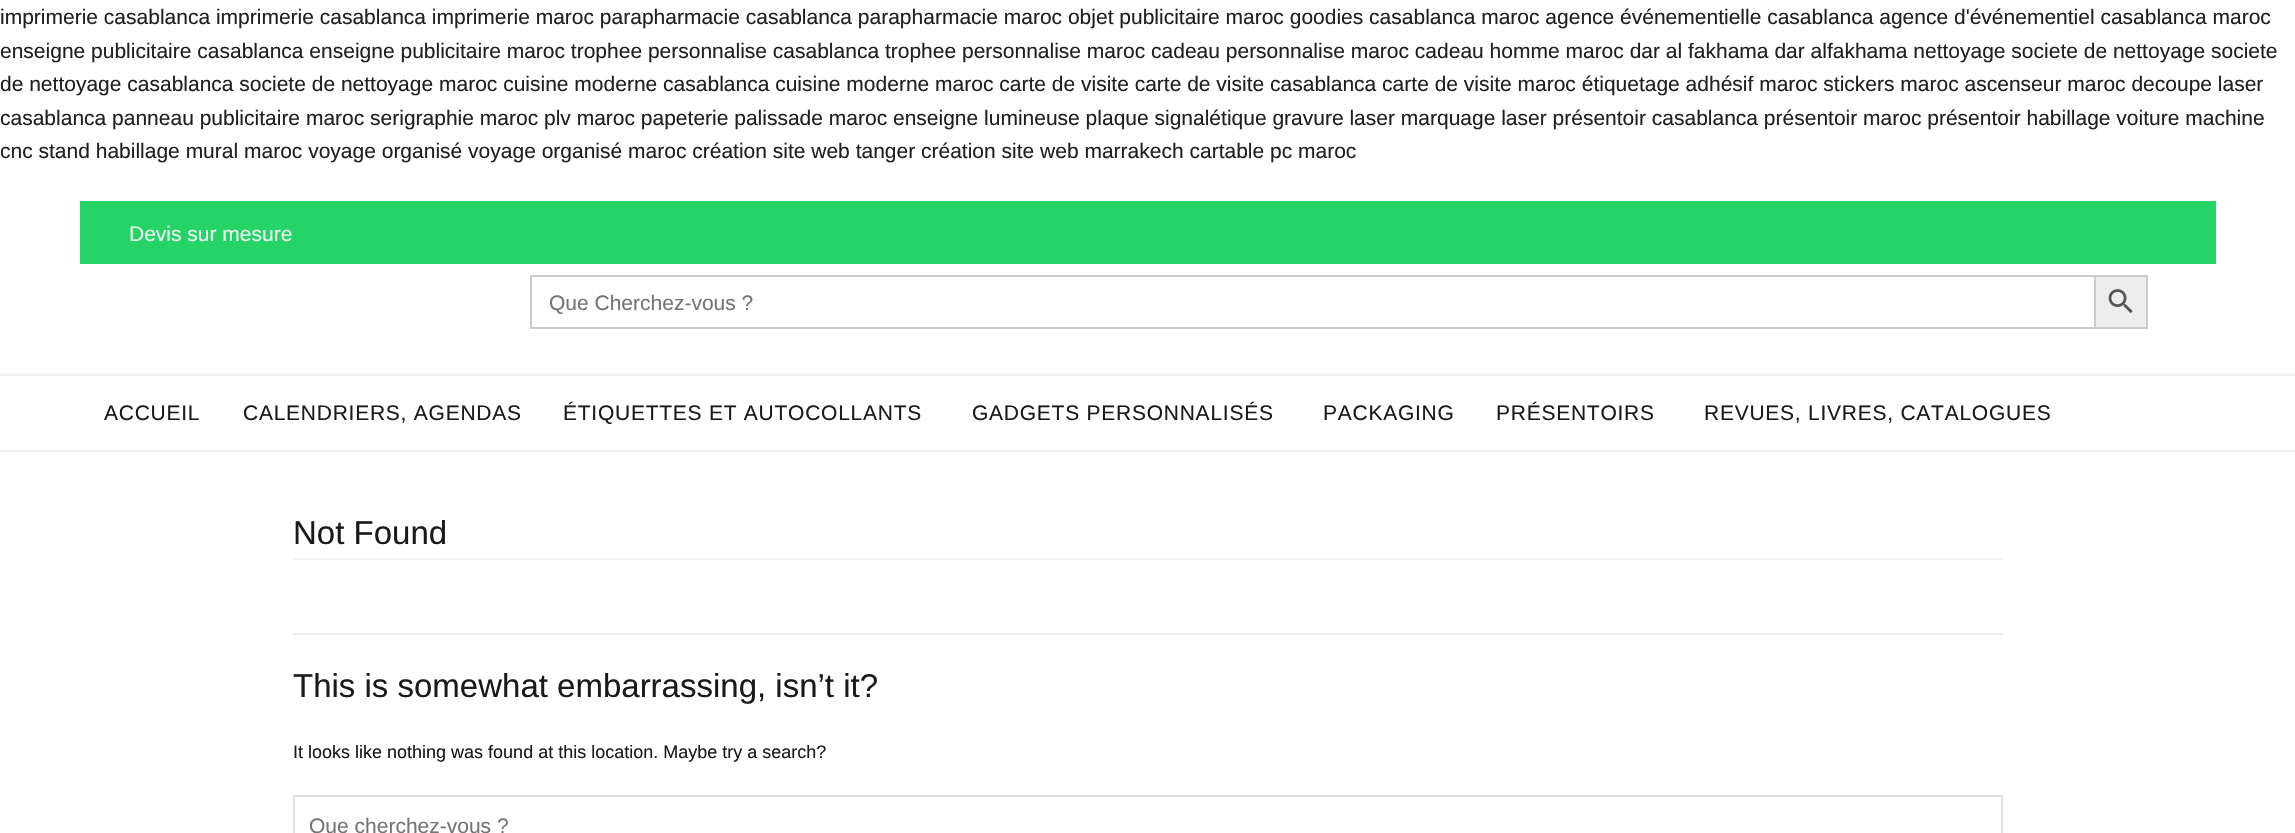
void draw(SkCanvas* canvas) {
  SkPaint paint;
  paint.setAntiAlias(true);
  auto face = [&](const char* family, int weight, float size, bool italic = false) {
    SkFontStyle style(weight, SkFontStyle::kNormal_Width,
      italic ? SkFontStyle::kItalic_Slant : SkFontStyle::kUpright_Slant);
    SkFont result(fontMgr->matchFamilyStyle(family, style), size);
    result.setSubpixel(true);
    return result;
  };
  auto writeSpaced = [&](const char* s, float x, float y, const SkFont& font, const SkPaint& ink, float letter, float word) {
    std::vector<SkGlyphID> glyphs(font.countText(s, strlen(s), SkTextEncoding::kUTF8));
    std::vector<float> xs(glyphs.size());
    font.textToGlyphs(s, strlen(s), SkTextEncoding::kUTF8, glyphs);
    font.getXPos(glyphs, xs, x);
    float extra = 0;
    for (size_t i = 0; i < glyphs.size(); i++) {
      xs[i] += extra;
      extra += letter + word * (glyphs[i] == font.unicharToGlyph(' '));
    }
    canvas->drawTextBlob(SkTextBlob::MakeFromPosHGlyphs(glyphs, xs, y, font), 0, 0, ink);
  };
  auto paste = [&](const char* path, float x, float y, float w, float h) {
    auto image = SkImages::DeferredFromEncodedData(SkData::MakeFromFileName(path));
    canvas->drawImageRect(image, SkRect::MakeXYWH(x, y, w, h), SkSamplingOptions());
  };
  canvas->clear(0xffffffff);
  {
    const struct { float x, y, w, h; SkColor color; } items[] = {
      {80, 201, 2136, 63, 0xff25d366},
      {530, 275, 1564, 2, 0xffcccccc},
      {530, 327, 1564, 2, 0xffcccccc},
      {530, 275, 2, 54, 0xffcccccc},
    };
    for (auto [x, y, w, h, color] : items) {
      paint.setColor(color);
      canvas->drawRect(SkRect::MakeXYWH(x, y, w, h), paint);
    }
  }
  paint.setColor(0xffededed);
  canvas->drawRect(SkRect::MakeXYWH(2095, 276, 52, 52), paint);
  paint.setStroke(true);
  paint.setStrokeWidth(2);
  paint.setColor(0xffcccccc);
  canvas->drawRect(SkRect::MakeXYWH(2095, 276, 52, 52), paint);
  paste("img/1.png", 2108, 289, 25, 25);
  paint.setStroke(false);
  {
    const struct { float x, y, w, h; SkColor color; } items[] = {
      {0, 374, 2295, 2, 0xffeeeeee},
      {0, 450, 2295, 2, 0xffeeeeee},
      {293, 633, 1710, 2, 0xffeeeeee},
      {293, 558, 1710, 2, 0xfff2f2f2},
    };
    for (auto [x, y, w, h, color] : items) {
      paint.setColor(color);
      canvas->drawRect(SkRect::MakeXYWH(x, y, w, h), paint);
    }
  }
  paint.setStroke(true);
  paint.setColor(0xffe0e0e0);
  canvas->drawRect(SkRect::MakeXYWH(294, 796, 1708, 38), paint);
  auto f0 = face("Liberation Sans", 400, 21);
  paint.setStroke(false);
  paint.setColor(0xff202020);
  {
    const struct { const char* s; float x, y; } items[] = {
      {"imprimerie casablanca imprimerie casablanca imprimerie maroc parapharmacie casablanca parapharmacie maroc objet publicitaire maroc goodies casablanca maroc agence événementielle casablanca agence d'événementiel casablanca maroc", 0, 24},
      {"enseigne publicitaire casablanca enseigne publicitaire maroc trophee personnalise casablanca trophee personnalise maroc cadeau personnalise maroc cadeau homme maroc dar al fakhama dar alfakhama nettoyage societe de nettoyage societe", 0, 58},
      {"de nettoyage casablanca societe de nettoyage maroc cuisine moderne casablanca cuisine moderne maroc carte de visite carte de visite casablanca carte de visite maroc étiquetage adhésif maroc stickers maroc ascenseur maroc decoupe laser", 0, 91},
      {"casablanca panneau publicitaire maroc serigraphie maroc plv maroc papeterie palissade maroc enseigne lumineuse plaque signalétique gravure laser marquage laser présentoir casablanca présentoir maroc présentoir habillage voiture machine", 0, 125},
      {"cnc stand habillage mural maroc voyage organisé voyage organisé maroc création site web tanger création site web marrakech cartable pc maroc", 0, 158},
    };
    for (auto [s, x, y] : items) {
      canvas->drawString(s, x, y, f0, paint);
    }
  }
  paint.setColor(0xffe9fbf0);
  canvas->drawString("Devis sur mesure", 129, 241, f0, paint);
  paint.setColor(0xff757575);
  canvas->drawString("Que Cherchez-vous ?", 549, 310, f0, paint);
  paint.setColor(0xff1a1a1a);
  {
    const struct { const char* s; float x, y; } items[] = {
      {"ACCUEIL", 104, 420},
      {"CALENDRIERS, AGENDAS", 243, 420},
      {"ÉTIQUETTES ET AUTOCOLLANTS", 563, 420},
      {"GADGETS PERSONNALISÉS", 972, 420},
      {"PACKAGING", 1323, 420},
      {"PRÉSENTOIRS", 1496, 420},
      {"REVUES, LIVRES, CATALOGUES", 1704, 420},
    };
    for (auto [s, x, y] : items) {
      writeSpaced(s, x, y, f0, paint, 0.75f, 0);
    }
  }
  auto f1 = face("Liberation Sans", 400, 33);
  canvas->drawString("Not Found", 293, 544, f1, paint);
  canvas->drawString("This is somewhat embarrassing, isn’t it?", 293, 697, f1, paint);
  auto f2 = face("Liberation Sans", 400, 18);
  canvas->drawString("It looks like nothing was found at this location. Maybe try a search?", 293, 758, f2, paint);
  paint.setColor(0xff757575);
  canvas->drawString("Que cherchez-vous ?", 309, 833, f0, paint);
}
